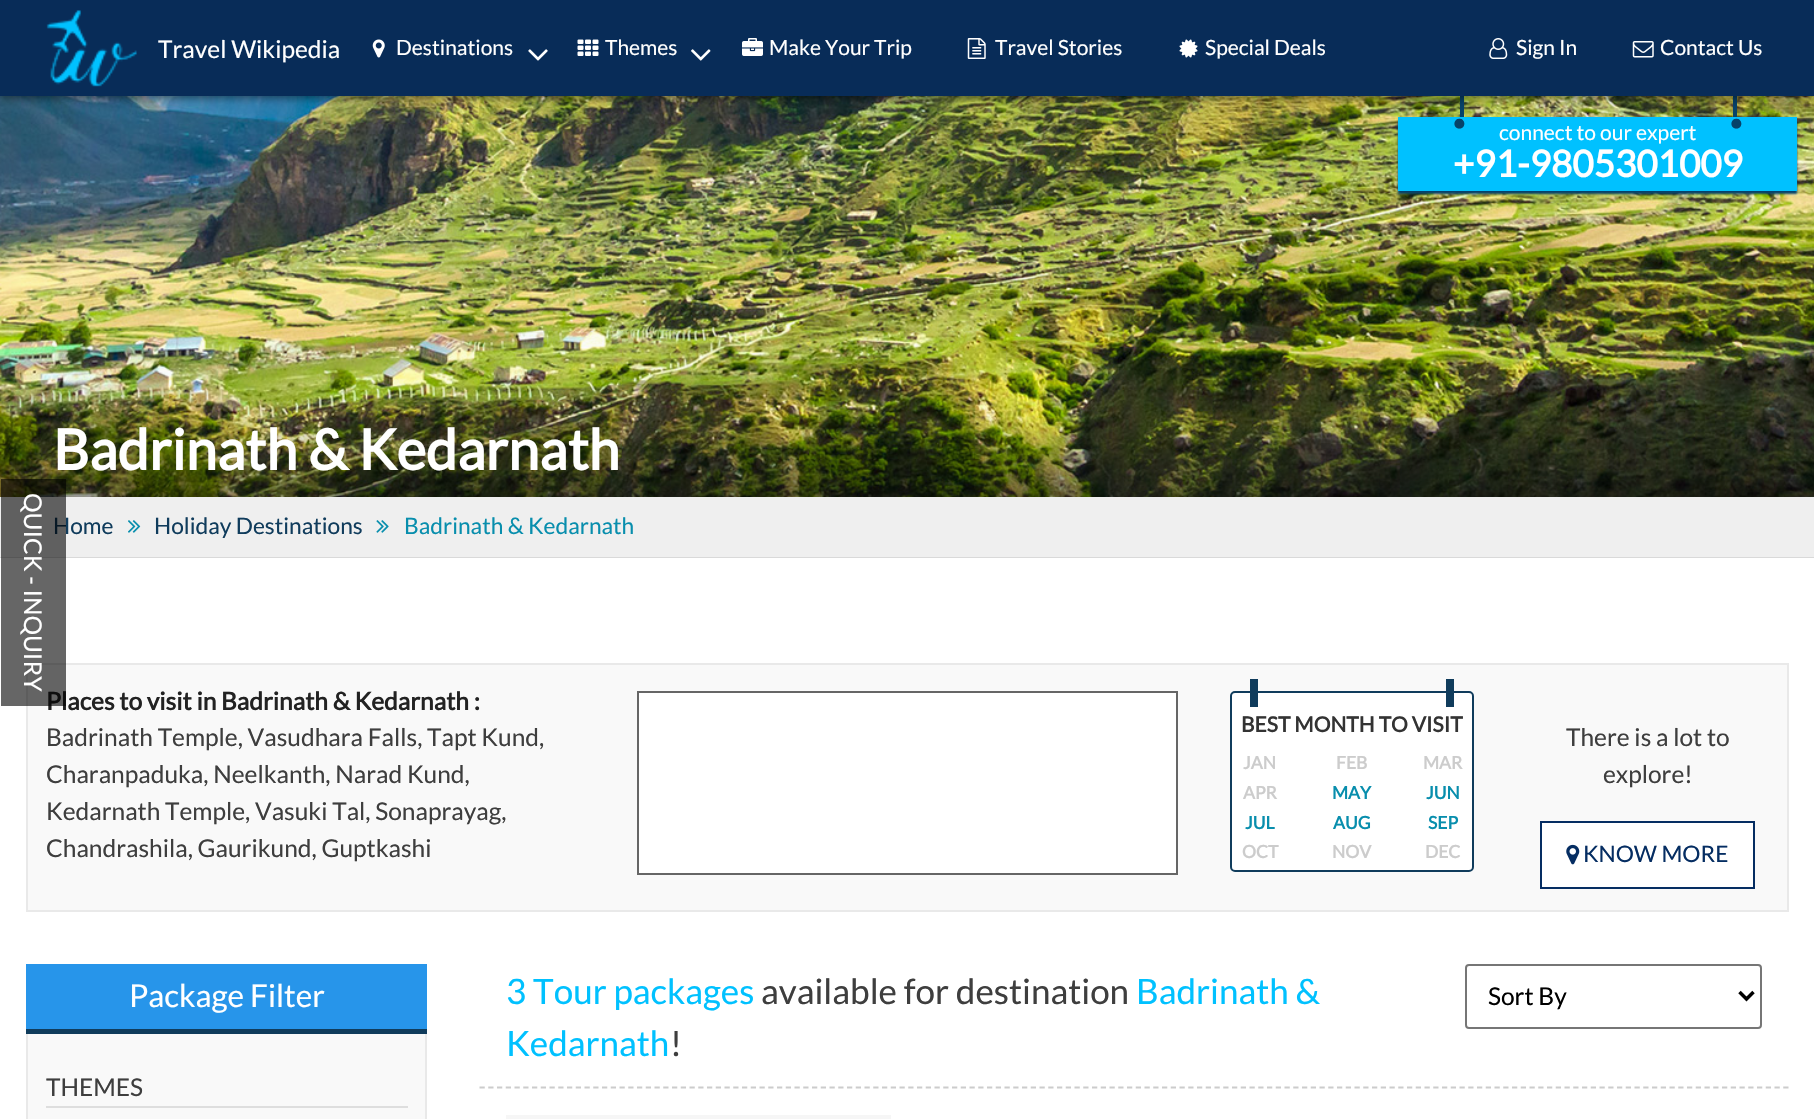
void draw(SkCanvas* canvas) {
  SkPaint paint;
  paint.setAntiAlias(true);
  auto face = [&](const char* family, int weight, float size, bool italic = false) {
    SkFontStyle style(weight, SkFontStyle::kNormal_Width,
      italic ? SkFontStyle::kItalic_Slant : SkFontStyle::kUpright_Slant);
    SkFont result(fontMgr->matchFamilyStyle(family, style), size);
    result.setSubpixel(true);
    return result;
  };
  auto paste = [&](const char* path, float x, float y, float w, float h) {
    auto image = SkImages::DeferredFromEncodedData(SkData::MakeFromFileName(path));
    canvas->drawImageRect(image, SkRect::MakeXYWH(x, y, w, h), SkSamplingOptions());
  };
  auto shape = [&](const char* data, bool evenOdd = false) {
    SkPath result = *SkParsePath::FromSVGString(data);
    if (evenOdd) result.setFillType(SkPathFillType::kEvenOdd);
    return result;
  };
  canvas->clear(0xffefefef);
  paste("img/11.png", 0, 96, 1814, 401);
  paint.setColor(0xff06426a);
  canvas->drawRect(SkRect::MakeXYWH(1460, 96, 4, 21), paint);
  canvas->drawRect(SkRect::MakeXYWH(1733, 96, 4, 21), paint);
  paint.setColor(0x80000000);
  paint.setMaskFilter(SkMaskFilter::MakeBlur(kNormal_SkBlurStyle, 4.5f));
  canvas->drawRect(SkRect::MakeXYWH(0, 2, 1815, 96), paint);
  paint.setMaskFilter(nullptr);
  paint.setColor(0xff082c58);
  canvas->drawRect(SkRect::MakeXYWH(0, 0, 1814, 96), paint);
  paste("img/1.png", 46, 10, 91, 77);
  paste("img/2.png", 372, 39, 13, 19);
  paste("img/3.png", 528, 49, 20, 12);
  paste("img/4.png", 577, 39, 22, 17);
  paste("img/5.png", 691, 49, 20, 12);
  paste("img/6.png", 742, 38, 21, 18);
  paste("img/7.png", 967, 38, 19, 21);
  paste("img/8.png", 1179, 39, 19, 19);
  paste("img/9.png", 1489, 38, 19, 21);
  paste("img/10.png", 1632, 41, 22, 17);
  paint.setColor(0xff06426a);
  paint.setMaskFilter(SkMaskFilter::MakeBlur(kNormal_SkBlurStyle, 1));
  canvas->drawRect(SkRect::MakeXYWH(1398, 121, 399, 73), paint);
  paint.setMaskFilter(nullptr);
  paint.setColor(0xff00c1ff);
  canvas->drawRect(SkRect::MakeXYWH(1398, 117, 399, 74), paint);
  paint.setColor(0xffd9d9d9);
  canvas->drawRect(SkRect::MakeXYWH(0, 557, 1814, 1), paint);
  paste("img/12.png", 128, 520, 13, 13);
  paste("img/13.png", 376, 520, 13, 13);
  paint.setColor(0xffffffff);
  canvas->drawRect(SkRect::MakeXYWH(0, 558, 1814, 561), paint);
  paint.setColor(0xfff9f9f9);
  canvas->drawRect(SkRect::MakeXYWH(27, 664, 1761, 247), paint);
  paint.setStroke(true);
  paint.setStrokeWidth(2);
  paint.setColor(0xffe9e9e9);
  canvas->drawRect(SkRect::MakeXYWH(27, 664, 1761, 247), paint);
  paint.setStroke(false);
  paint.setColor(0xffffffff);
  canvas->drawRect(SkRect::MakeXYWH(638, 692, 539, 182), paint);
  paint.setStroke(true);
  paint.setColor(0xff666666);
  canvas->drawRect(SkRect::MakeXYWH(638, 692, 539, 182), paint);
  paint.setStroke(false);
  paint.setColor(0xffffffff);
  canvas->drawRoundRect(SkRect::MakeXYWH(1231, 692, 242, 179), 4, 4, paint);
  paint.setStroke(true);
  paint.setColor(0xff103c5c);
  canvas->drawRoundRect(SkRect::MakeXYWH(1231, 692, 242, 179), 4, 4, paint);
  paint.setStroke(false);
  canvas->drawRect(SkRect::MakeXYWH(1250, 679, 8, 28), paint);
  canvas->drawRect(SkRect::MakeXYWH(1446, 679, 8, 28), paint);
  paint.setColor(0xffffffff);
  canvas->drawRect(SkRect::MakeXYWH(1541, 822, 213, 66), paint);
  paint.setStroke(true);
  paint.setColor(0xff052d62);
  canvas->drawRect(SkRect::MakeXYWH(1541, 822, 213, 66), paint);
  paste("img/14.png", 1566, 844, 14, 21);
  paint.setStroke(false);
  paint.setColor(0xfff9f9f9);
  canvas->drawRect(SkRect::MakeXYWH(28, 1034, 397, 85), paint);
  paint.setStroke(true);
  paint.setColor(0xffe9e9e9);
  canvas->drawRect(SkRect::MakeXYWH(27, 965, 399, 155), paint);
  paint.setStroke(false);
  {
    const struct { float x, y, w, h; SkColor color; } items[] = {
      {26, 964, 401, 65, 0xff2795ea},
      {26, 1029, 401, 5, 0xff103c5c},
      {46, 1106, 362, 2, 0xffdedede},
    };
    for (auto [x, y, w, h, color] : items) {
      paint.setColor(color);
      canvas->drawRect(SkRect::MakeXYWH(x, y, w, h), paint);
    }
  }
  paint.setStroke(true);
  paint.setStrokeWidth(1.8f);
  paint.setColor(0xffcccccc);
  paint.setPathEffect(SkDashPathEffect::Make({{5.25f, 3.5f}}, 0));
  canvas->drawPath(shape("M479.5 1087.5H1788.5"), paint);
  paint.setPathEffect(nullptr);
  paint.setStrokeWidth(2);
  paint.setColor(0xff767676);
  canvas->drawRoundRect(SkRect::MakeXYWH(1466, 965, 295, 63), 3, 3, paint);
  paint.setStrokeWidth(3.5f);
  paint.setColor(0xff000000);
  canvas->drawPath(shape("M1739.5 992L1746.5 999L1753.5 992"), paint);
  paint.setStroke(false);
  {
    const SkColor colors[] = {0xfff6f6f6, 0xff565656};
    const float stops[] = {0.5f, 1};
    const SkPoint ends[] = {{698, 1115}, {698, 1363}};
    paint.setShader(SkGradientShader::MakeLinear(ends, colors, stops, 2, SkTileMode::kClamp));
    paint.setAlpha(255);
  }
  canvas->drawRect(SkRect::MakeXYWH(506, 1115, 385, 4), paint);
  auto f0 = face("Lato", 400, 24.5f);
  paint.setShader(nullptr);
  paint.setColor(0xffffffff);
  canvas->drawString("Travel Wikipedia", 158, 58, f0, paint);
  auto f1 = face("Lato", 400, 21);
  {
    const struct { const char* s; float x, y; } items[] = {
      {"Destinations", 396, 55},
      {"Themes", 605, 55},
      {"Make Your Trip", 769, 55},
      {"Travel Stories", 995, 55},
      {"Special Deals", 1205, 55},
      {"Sign In", 1516, 55},
      {"Contact Us", 1660, 55},
    };
    for (auto [s, x, y] : items) {
      canvas->drawString(s, x, y, f1, paint);
    }
  }
  auto f2 = face("Lato", 400, 79);
  paint.setColor(0xff06426a);
  canvas->drawString(".", 1451, 128, f2, paint);
  canvas->drawString(".", 1728, 128, f2, paint);
  paint.setColor(0xffffffff);
  canvas->drawString("connect to our expert", 1499, 140, f1, paint);
  auto f3 = face("Lato", 700, 36.75f);
  canvas->drawString("+91-9805301009", 1453, 177, f3, paint);
  auto f4 = face("Lato", 700, 56);
  canvas->drawString("Badrinath & Kedarnath", 53, 470, f4, paint);
  auto f5 = face("Lato", 400, 22.75f);
  paint.setColor(0xff103c5c);
  canvas->drawString("Home", 53, 534, f5, paint);
  canvas->drawString("Holiday Destinations", 154, 534, f5, paint);
  paint.setColor(0xff088ead);
  canvas->drawString("Badrinath & Kedarnath", 404, 534, f5, paint);
  auto f6 = face("Lato", 700, 24.5f);
  paint.setColor(0xff222222);
  canvas->drawString("Places to visit in Badrinath & Kedarnath :", 46, 710, f6, paint);
  paint.setColor(0x99000000);
  canvas->drawRect(SkRect::MakeXYWH(1, 479, 65, 227), paint);
  paint.setColor(0xffffffff);
  canvas->save();
  canvas->rotate(90, 24, 493);
  canvas->drawString("QUICK - INQUIRY", 24, 493, f0, paint);
  canvas->restore();
  paint.setColor(0xff3e3e3e);
  {
    const struct { const char* s; float x, y; } items[] = {
      {"Badrinath Temple, Vasudhara Falls, Tapt Kund,", 46, 746},
      {"Charanpaduka, Neelkanth, Narad Kund,", 46, 783},
      {"Kedarnath Temple, Vasuki Tal, Sonaprayag,", 46, 820},
      {"Chandrashila, Gaurikund, Guptkashi", 46, 857},
    };
    for (auto [s, x, y] : items) {
      canvas->drawString(s, x, y, f0, paint);
    }
  }
  auto f7 = face("Lato", 700, 21);
  paint.setColor(0xff333333);
  canvas->drawString("BEST MONTH TO VISIT", 1241, 732, f7, paint);
  auto f8 = face("Lato", 700, 17.5f);
  paint.setColor(0xffcccccc);
  {
    const struct { const char* s; float x, y; } items[] = {
      {"JAN", 1243, 769},
      {"FEB", 1336, 769},
      {"MAR", 1423, 769},
      {"APR", 1243, 799},
    };
    for (auto [s, x, y] : items) {
      canvas->drawString(s, x, y, f8, paint);
    }
  }
  paint.setColor(0xff088ead);
  {
    const struct { const char* s; float x, y; } items[] = {
      {"MAY", 1332, 799},
      {"JUN", 1426, 799},
      {"JUL", 1245, 829},
      {"AUG", 1333, 829},
      {"SEP", 1428, 829},
    };
    for (auto [s, x, y] : items) {
      canvas->drawString(s, x, y, f8, paint);
    }
  }
  paint.setColor(0xffcccccc);
  {
    const struct { const char* s; float x, y; } items[] = {
      {"OCT", 1242, 858},
      {"NOV", 1332, 858},
      {"DEC", 1425, 858},
    };
    for (auto [s, x, y] : items) {
      canvas->drawString(s, x, y, f8, paint);
    }
  }
  paint.setColor(0xff3e3e3e);
  canvas->drawString("There is a lot to", 1566, 746, f0, paint);
  canvas->drawString("explore!", 1603, 783, f0, paint);
  paint.setColor(0xff052d62);
  canvas->drawString("KNOW MORE", 1583, 862, f5, paint);
  auto f9 = face("Lato", 400, 31.5f);
  paint.setColor(0xffffffff);
  canvas->drawString("Package Filter", 129, 1007, f9, paint);
  paint.setColor(0xff3e3e3e);
  canvas->drawString("THEMES", 46, 1096, f0, paint);
  auto f10 = face("Lato", 400, 35);
  paint.setColor(0xff00c1ff);
  canvas->drawString("3 Tour packages", 506, 1004, f10, paint);
  paint.setColor(0xff3e3e3e);
  canvas->drawString("available for destination", 761, 1004, f10, paint);
  paint.setColor(0xff00c1ff);
  canvas->drawString("Badrinath &", 1136, 1004, f10, paint);
  canvas->drawString("Kedarnath", 506, 1056, f10, paint);
  paint.setColor(0xff3e3e3e);
  canvas->drawString("!", 670, 1056, f10, paint);
  paint.setColor(0xff000000);
  canvas->drawString("Sort By", 1488, 1005, f0, paint);
}
